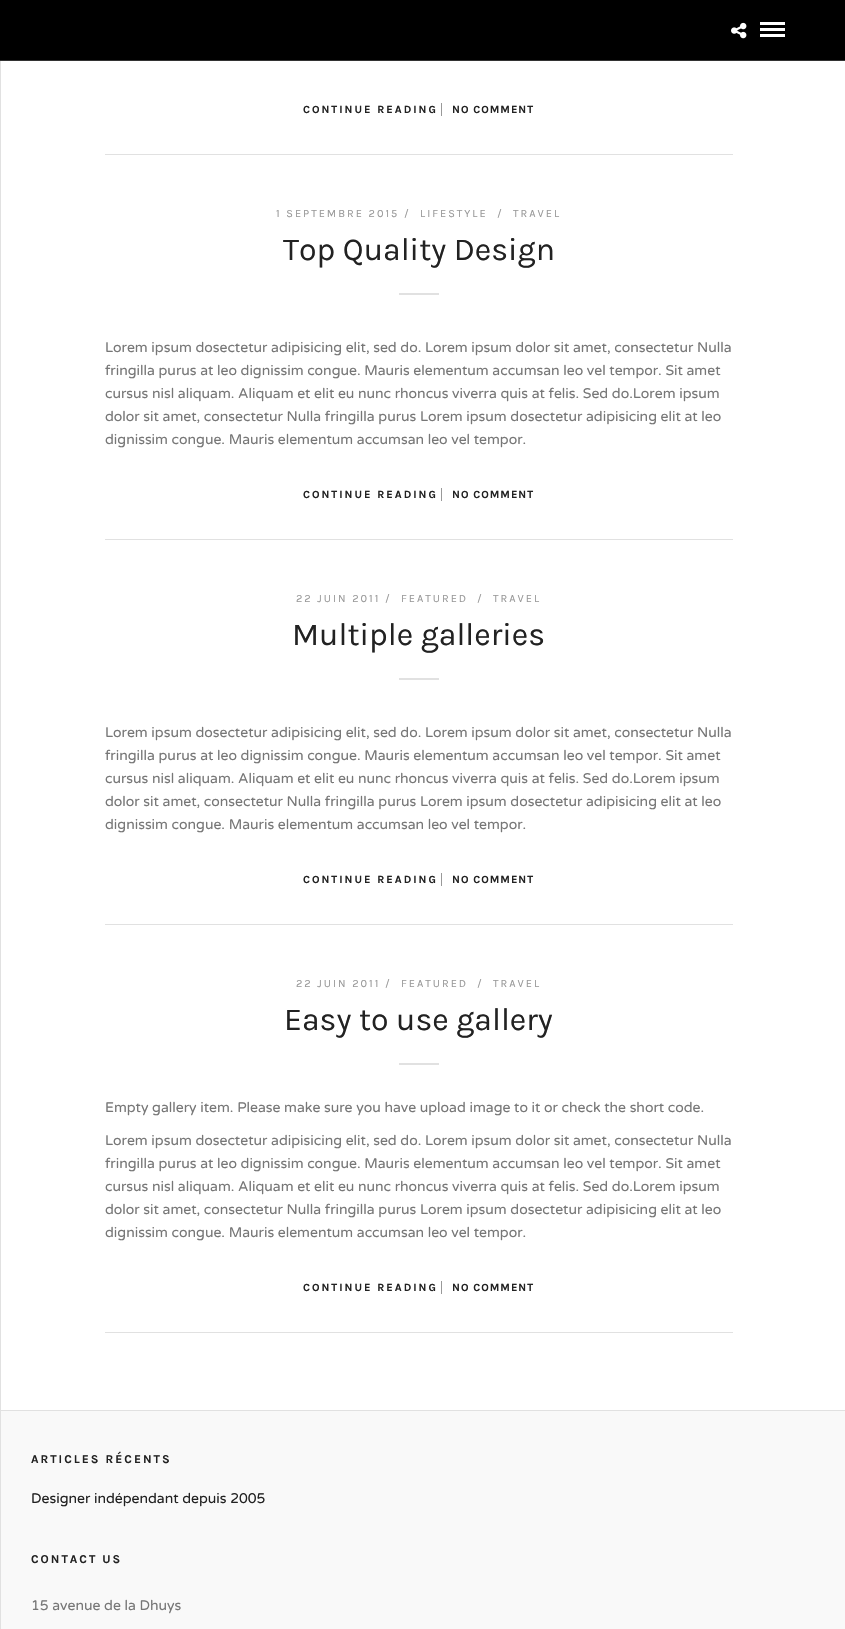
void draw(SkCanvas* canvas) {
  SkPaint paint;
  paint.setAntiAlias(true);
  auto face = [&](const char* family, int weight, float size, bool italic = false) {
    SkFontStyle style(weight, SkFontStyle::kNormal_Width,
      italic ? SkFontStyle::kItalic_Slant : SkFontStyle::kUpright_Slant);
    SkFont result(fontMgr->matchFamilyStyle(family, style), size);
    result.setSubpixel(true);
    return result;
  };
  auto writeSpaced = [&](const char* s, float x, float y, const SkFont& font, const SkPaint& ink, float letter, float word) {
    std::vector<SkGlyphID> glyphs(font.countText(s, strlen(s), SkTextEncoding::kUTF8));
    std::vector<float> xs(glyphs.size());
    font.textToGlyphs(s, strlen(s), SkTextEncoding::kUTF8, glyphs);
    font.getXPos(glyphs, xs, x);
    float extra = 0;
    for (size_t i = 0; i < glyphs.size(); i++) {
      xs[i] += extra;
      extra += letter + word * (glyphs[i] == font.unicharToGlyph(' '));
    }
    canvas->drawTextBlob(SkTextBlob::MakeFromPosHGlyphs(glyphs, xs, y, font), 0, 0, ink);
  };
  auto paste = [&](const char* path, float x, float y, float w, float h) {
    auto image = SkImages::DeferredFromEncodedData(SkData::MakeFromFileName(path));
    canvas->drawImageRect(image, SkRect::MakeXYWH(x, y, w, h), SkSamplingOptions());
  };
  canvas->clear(0xffffffff);
  paint.setStroke(true);
  paint.setStrokeWidth(1);
  paint.setColor(0xffe1e1e1);
  canvas->drawRect(SkRect::MakeXYWH(0.5f, -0.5f, 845, 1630), paint);
  paint.setStroke(false);
  paint.setColor(0xff000000);
  canvas->drawRect(SkRect::MakeXYWH(0, 0, 845, 60), paint);
  paint.setColor(0xff333333);
  canvas->drawRect(SkRect::MakeXYWH(0, 60, 845, 1), paint);
  paste("img/1.png", 731, 22, 16, 17);
  {
    const struct { float x, y, w, h; SkColor color; } items[] = {
      {760, 22, 25, 3, 0xffffffff},
      {760, 28, 25, 3, 0xffffffff},
      {760, 34, 25, 3, 0xffffffff},
      {105, 154, 628, 1, 0xffe1e1e1},
      {441, 103, 1, 13, 0xff999999},
      {105, 539, 628, 1, 0xffe1e1e1},
      {399, 293, 40, 2, 0xffe1e1e1},
      {441, 488, 1, 13, 0xff999999},
      {105, 924, 628, 1, 0xffe1e1e1},
      {399, 678, 40, 2, 0xffe1e1e1},
      {441, 873, 1, 13, 0xff999999},
      {105, 1332, 628, 1, 0xffe1e1e1},
      {399, 1063, 40, 2, 0xffe1e1e1},
      {441, 1281, 1, 13, 0xff999999},
      {1, 1411, 844, 218, 0xfff9f9f9},
      {1, 1410, 844, 1, 0xffe1e1e1},
    };
    for (auto [x, y, w, h, color] : items) {
      paint.setColor(color);
      canvas->drawRect(SkRect::MakeXYWH(x, y, w, h), paint);
    }
  }
  auto f0 = face("Karla", 700, 11);
  paint.setColor(0xff222222);
  writeSpaced("CONTINUE READING", 303, 113, f0, paint, 2, 0);
  writeSpaced("NO COMMENT", 452, 113, f0, paint, 1, 0);
  auto f1 = face("Karla", 400, 11);
  paint.setColor(0xff999999);
  {
    const struct { const char* s; float x, y; } items[] = {
      {"1 SEPTEMBRE 2015 /", 276, 217},
      {"LIFESTYLE", 420, 217},
      {"/", 497, 217},
      {"TRAVEL", 513, 217},
    };
    for (auto [s, x, y] : items) {
      writeSpaced(s, x, y, f1, paint, 2, 0);
    }
  }
  auto f2 = face("Karla", 400, 32);
  paint.setColor(0xff222222);
  canvas->drawString("Top Quality Design", 283, 260, f2, paint);
  auto f3 = face("Varela Round", 400, 14);
  paint.setColor(0xff777777);
  {
    const struct { const char* s; float x, y; } items[] = {
      {"Lorem ipsum dosectetur adipisicing elit, sed do. Lorem ipsum dolor sit amet, consectetur Nulla", 105, 352},
      {"fringilla purus at leo dignissim congue. Mauris elementum accumsan leo vel tempor. Sit amet", 105, 375},
      {"cursus nisl aliquam. Aliquam et elit eu nunc rhoncus viverra quis at felis. Sed do.Lorem ipsum", 105, 398},
      {"dolor sit amet, consectetur Nulla fringilla purus Lorem ipsum dosectetur adipisicing elit at leo", 105, 421},
      {"dignissim congue. Mauris elementum accumsan leo vel tempor.", 105, 444},
    };
    for (auto [s, x, y] : items) {
      canvas->drawString(s, x, y, f3, paint);
    }
  }
  paint.setColor(0xff222222);
  writeSpaced("CONTINUE READING", 303, 498, f0, paint, 2, 0);
  writeSpaced("NO COMMENT", 452, 498, f0, paint, 1, 0);
  paint.setColor(0xff999999);
  {
    const struct { const char* s; float x, y; } items[] = {
      {"22 JUIN 2011 /", 296, 602},
      {"FEATURED", 401, 602},
      {"/", 477, 602},
      {"TRAVEL", 493, 602},
    };
    for (auto [s, x, y] : items) {
      writeSpaced(s, x, y, f1, paint, 2, 0);
    }
  }
  paint.setColor(0xff222222);
  canvas->drawString("Multiple galleries", 292, 645, f2, paint);
  paint.setColor(0xff777777);
  {
    const struct { const char* s; float x, y; } items[] = {
      {"Lorem ipsum dosectetur adipisicing elit, sed do. Lorem ipsum dolor sit amet, consectetur Nulla", 105, 737},
      {"fringilla purus at leo dignissim congue. Mauris elementum accumsan leo vel tempor. Sit amet", 105, 760},
      {"cursus nisl aliquam. Aliquam et elit eu nunc rhoncus viverra quis at felis. Sed do.Lorem ipsum", 105, 783},
      {"dolor sit amet, consectetur Nulla fringilla purus Lorem ipsum dosectetur adipisicing elit at leo", 105, 806},
      {"dignissim congue. Mauris elementum accumsan leo vel tempor.", 105, 829},
    };
    for (auto [s, x, y] : items) {
      canvas->drawString(s, x, y, f3, paint);
    }
  }
  paint.setColor(0xff222222);
  writeSpaced("CONTINUE READING", 303, 883, f0, paint, 2, 0);
  writeSpaced("NO COMMENT", 452, 883, f0, paint, 1, 0);
  paint.setColor(0xff999999);
  {
    const struct { const char* s; float x, y; } items[] = {
      {"22 JUIN 2011 /", 296, 987},
      {"FEATURED", 401, 987},
      {"/", 477, 987},
      {"TRAVEL", 493, 987},
    };
    for (auto [s, x, y] : items) {
      writeSpaced(s, x, y, f1, paint, 2, 0);
    }
  }
  paint.setColor(0xff222222);
  canvas->drawString("Easy to use gallery", 284, 1030, f2, paint);
  paint.setColor(0xff777777);
  {
    const struct { const char* s; float x, y; } items[] = {
      {"Empty gallery item. Please make sure you have upload image to it or check the short code.", 105, 1112},
      {"Lorem ipsum dosectetur adipisicing elit, sed do. Lorem ipsum dolor sit amet, consectetur Nulla", 105, 1145},
      {"fringilla purus at leo dignissim congue. Mauris elementum accumsan leo vel tempor. Sit amet", 105, 1168},
      {"cursus nisl aliquam. Aliquam et elit eu nunc rhoncus viverra quis at felis. Sed do.Lorem ipsum", 105, 1191},
      {"dolor sit amet, consectetur Nulla fringilla purus Lorem ipsum dosectetur adipisicing elit at leo", 105, 1214},
      {"dignissim congue. Mauris elementum accumsan leo vel tempor.", 105, 1237},
    };
    for (auto [s, x, y] : items) {
      canvas->drawString(s, x, y, f3, paint);
    }
  }
  paint.setColor(0xff222222);
  writeSpaced("CONTINUE READING", 303, 1291, f0, paint, 2, 0);
  writeSpaced("NO COMMENT", 452, 1291, f0, paint, 1, 0);
  auto f4 = face("Karla", 700, 12);
  writeSpaced("ARTICLES RÉCENTS", 31, 1463, f4, paint, 2, 0);
  canvas->drawString("Designer indépendant depuis 2005", 31, 1503, f3, paint);
  writeSpaced("CONTACT US", 31, 1563, f4, paint, 2, 0);
  paint.setColor(0xff777777);
  canvas->drawString("15 avenue de la Dhuys", 31, 1610, f3, paint);
}
